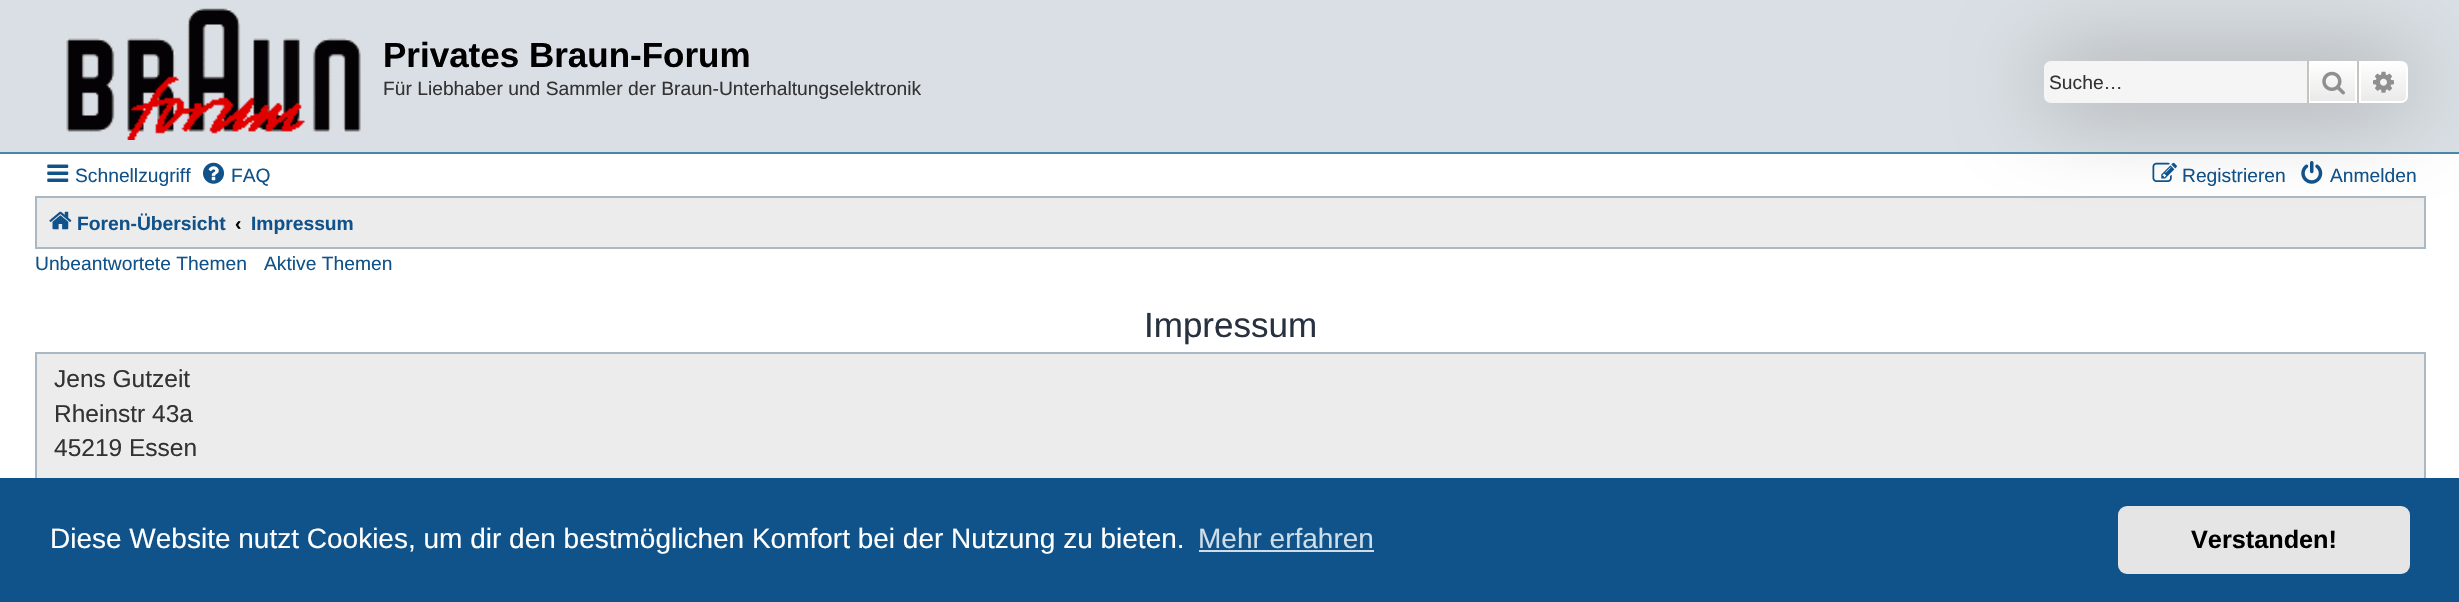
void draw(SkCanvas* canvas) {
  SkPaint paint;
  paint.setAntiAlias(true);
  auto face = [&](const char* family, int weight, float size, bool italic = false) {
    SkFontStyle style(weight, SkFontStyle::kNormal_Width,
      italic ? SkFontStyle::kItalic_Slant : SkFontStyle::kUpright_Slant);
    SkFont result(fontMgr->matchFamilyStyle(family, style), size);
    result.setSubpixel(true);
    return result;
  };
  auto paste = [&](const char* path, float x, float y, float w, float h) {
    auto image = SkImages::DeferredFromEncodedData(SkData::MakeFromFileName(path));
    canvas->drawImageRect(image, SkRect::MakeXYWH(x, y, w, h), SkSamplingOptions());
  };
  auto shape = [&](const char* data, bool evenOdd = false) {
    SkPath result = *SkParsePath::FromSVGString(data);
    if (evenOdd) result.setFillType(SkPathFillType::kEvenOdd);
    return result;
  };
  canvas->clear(0xffffffff);
  paint.setColor(0xffd9dfe4);
  canvas->drawRect(SkRect::MakeXYWH(0, 0, 2459, 152), paint);
  paint.setColor(0xff4787a7);
  canvas->drawRect(SkRect::MakeXYWH(0, 152, 2459, 2), paint);
  paste("img/1.png", 66, 8, 295, 132);
  paint.setColor(0xffececec);
  canvas->drawRect(SkRect::MakeXYWH(36, 197, 2389, 51), paint);
  paint.setStroke(true);
  paint.setStrokeWidth(2);
  paint.setColor(0xffa9b8c2);
  canvas->drawRect(SkRect::MakeXYWH(36, 197, 2389, 51), paint);
  paint.setStroke(false);
  paint.setColor(0xff999999);
  paint.setMaskFilter(SkMaskFilter::MakeBlur(kNormal_SkBlurStyle, 44));
  canvas->drawRoundRect(SkRect::MakeXYWH(2044, 61, 364, 42), 7, 7, paint);
  paint.setMaskFilter(nullptr);
  paint.setColor(0xfff5f5f5);
  canvas->drawPath(shape("M2051 61H2307V103H2051C2047 103 2044 100 2044 96V68C2044 64 2047 61 2051 61Z"), paint);
  {
    const SkColor colors[] = {0xffffffff, 0xffe9e9e9};
    const float stops[] = {0, 1};
    const SkPoint ends[] = {{2333, 61}, {2333, 103}};
    paint.setShader(SkGradientShader::MakeLinear(ends, colors, stops, 2, SkTileMode::kClamp));
    paint.setAlpha(255);
  }
  canvas->drawRect(SkRect::MakeXYWH(2310, 63, 45, 38), paint);
  paint.setStroke(true);
  paint.setShader(nullptr);
  paint.setColor(0xffffffff);
  canvas->drawRect(SkRect::MakeXYWH(2309, 62, 47, 40), paint);
  paint.setStroke(false);
  paint.setColor(0xffc7c3bf);
  canvas->drawRect(SkRect::MakeXYWH(2357, 61, 2, 42), paint);
  canvas->drawRect(SkRect::MakeXYWH(2307, 61, 2, 42), paint);
  paste("img/2.png", 2322, 71, 23, 24);
  {
    const SkColor colors[] = {0xffffffff, 0xffe9e9e9};
    const float stops[] = {0, 1};
    const SkPoint ends[] = {{2384, 61}, {2384, 103}};
    paint.setShader(SkGradientShader::MakeLinear(ends, colors, stops, 2, SkTileMode::kClamp));
    paint.setAlpha(255);
  }
  canvas->drawPath(shape("M2360 62H2401C2404.5 62 2407 64.5 2407 68V96C2407 99.5 2404.5 102 2401 102H2360Z"), paint);
  paint.setStroke(true);
  paint.setShader(nullptr);
  paint.setColor(0xffffffff);
  canvas->drawPath(shape("M2360 62H2401C2404.5 62 2407 64.5 2407 68V96C2407 99.5 2404.5 102 2401 102H2360Z"), paint);
  paste("img/3.png", 2373, 71, 21, 22);
  paste("img/4.png", 47, 164, 22, 18);
  paste("img/5.png", 203, 162, 21, 22);
  paste("img/6.png", 2152, 162, 25, 20);
  paste("img/7.png", 2301, 161, 22, 23);
  paste("img/8.png", 49, 211, 23, 19);
  paint.setStroke(false);
  paint.setColor(0xffececec);
  canvas->drawRect(SkRect::MakeXYWH(37, 354, 2387, 124), paint);
  paint.setStroke(true);
  paint.setColor(0xffa9b8c2);
  canvas->drawRect(SkRect::MakeXYWH(36, 353, 2389, 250), paint);
  paint.setStroke(false);
  paint.setColor(0xff0f538a);
  canvas->drawRect(SkRect::MakeXYWH(0, 478, 2459, 124), paint);
  paint.setColor(0xffcfdde8);
  canvas->drawRect(SkRect::MakeXYWH(1199, 550, 175, 2), paint);
  paint.setColor(0xffe5e5e5);
  canvas->drawRoundRect(SkRect::MakeXYWH(2118, 506, 292, 68), 9, 9, paint);
  auto f0 = face("Liberation Sans", 700, 35);
  paint.setColor(0xff000000);
  canvas->drawString("Privates Braun-Forum", 383, 67, f0, paint);
  auto f1 = face("Liberation Sans", 400, 19.25f);
  paint.setColor(0xff333333);
  canvas->drawString("Für Liebhaber und Sammler der Braun-Unterhaltungselektronik", 383, 95, f1, paint);
  canvas->drawString("Suche…", 2049, 89, f1, paint);
  paint.setColor(0xff105289);
  {
    const struct { const char* s; float x, y; } items[] = {
      {"Schnellzugriff", 75, 182},
      {"FAQ", 231, 182},
      {"Registrieren", 2182, 182},
      {"Anmelden", 2330, 182},
    };
    for (auto [s, x, y] : items) {
      canvas->drawString(s, x, y, f1, paint);
    }
  }
  auto f2 = face("Liberation Sans", 700, 19.25f);
  canvas->drawString("Foren-Übersicht", 77, 230, f2, paint);
  paint.setColor(0xff000000);
  canvas->drawString("‹", 235, 230, f2, paint);
  paint.setColor(0xff105289);
  canvas->drawString("Impressum", 251, 230, f2, paint);
  canvas->drawString("Unbeantwortete Themen", 35, 270, f1, paint);
  canvas->drawString("Aktive Themen", 264, 270, f1, paint);
  auto f3 = face("Liberation Sans", 400, 35);
  paint.setColor(0xff28313f);
  canvas->drawString("Impressum", 1144, 337, f3, paint);
  auto f4 = face("Liberation Sans", 400, 24.5f);
  paint.setColor(0xff333333);
  {
    const struct { const char* s; float x, y; } items[] = {
      {"Jens Gutzeit", 54, 387},
      {"Rheinstr 43a", 54, 422},
      {"45219 Essen", 54, 456},
    };
    for (auto [s, x, y] : items) {
      canvas->drawString(s, x, y, f4, paint);
    }
  }
  auto f5 = face("Liberation Sans", 400, 28);
  paint.setColor(0xffffffff);
  canvas->drawString("Diese Website nutzt Cookies, um dir den bestmöglichen Komfort bei der Nutzung zu bieten.", 50, 548, f5, paint);
  paint.setColor(0xffcfdde8);
  canvas->drawString("Mehr erfahren", 1198, 548, f5, paint);
  auto f6 = face("Liberation Sans", 700, 25.25f);
  paint.setColor(0xff000000);
  canvas->drawString("Verstanden!", 2191, 548, f6, paint);
}
